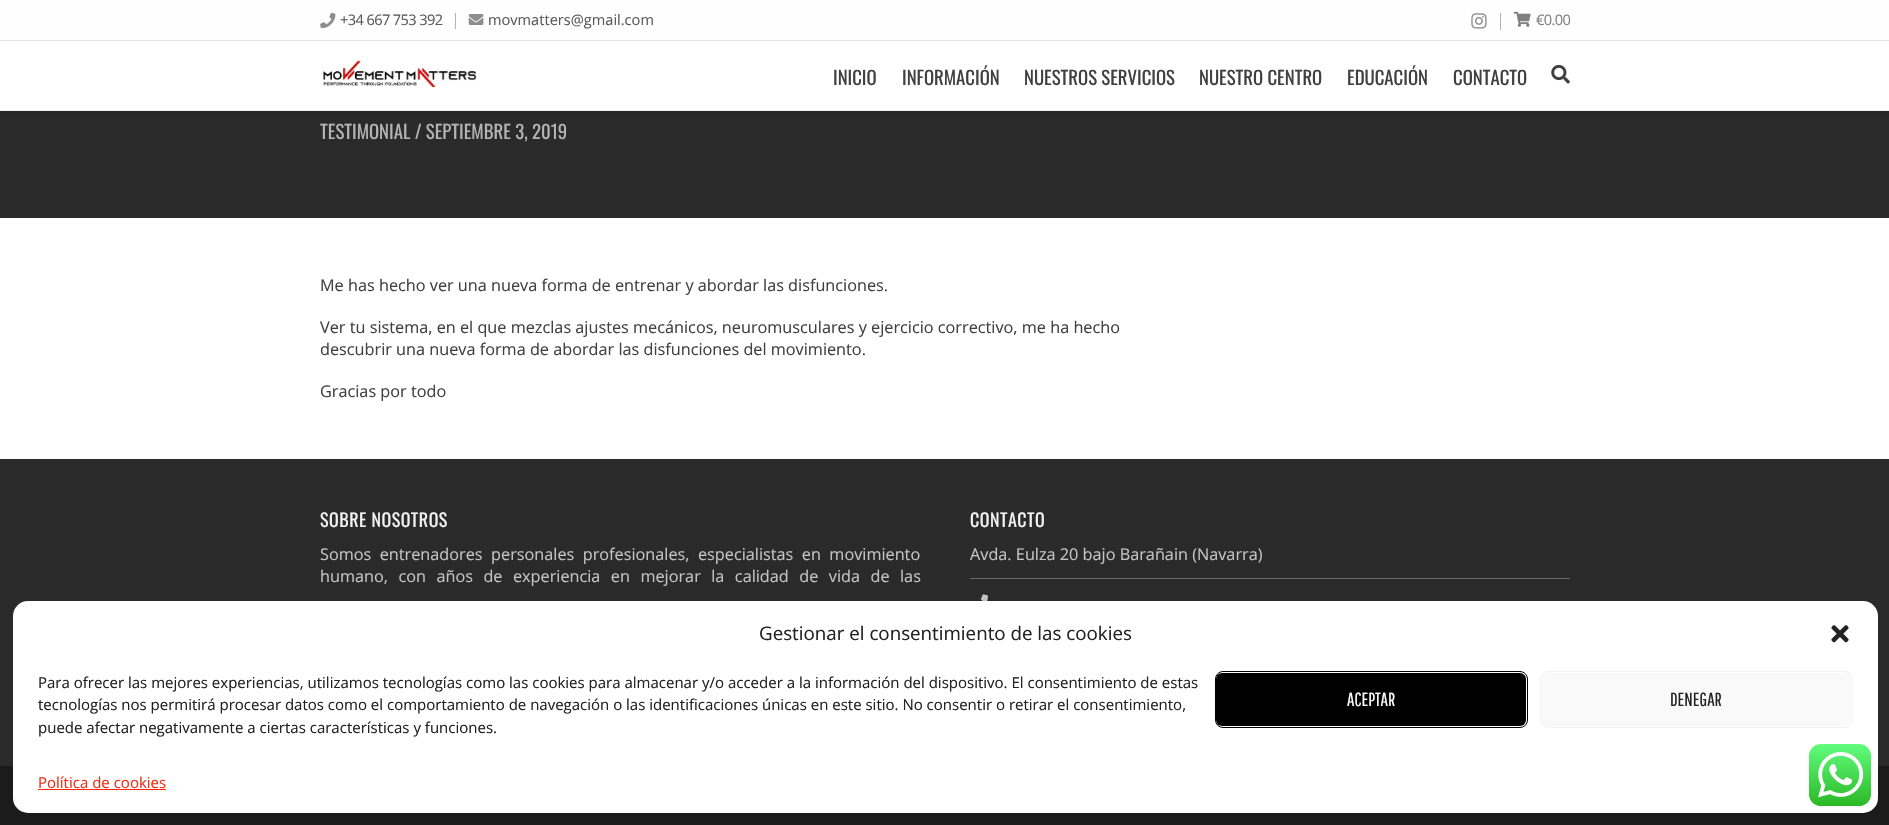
void draw(SkCanvas* canvas) {
  SkPaint paint;
  paint.setAntiAlias(true);
  auto face = [&](const char* family, int weight, float size, bool italic = false) {
    SkFontStyle style(weight, SkFontStyle::kNormal_Width,
      italic ? SkFontStyle::kItalic_Slant : SkFontStyle::kUpright_Slant);
    SkFont result(fontMgr->matchFamilyStyle(family, style), size);
    result.setSubpixel(true);
    return result;
  };
  auto writeSpaced = [&](const char* s, float x, float y, const SkFont& font, const SkPaint& ink, float letter, float word) {
    std::vector<SkGlyphID> glyphs(font.countText(s, strlen(s), SkTextEncoding::kUTF8));
    std::vector<float> xs(glyphs.size());
    font.textToGlyphs(s, strlen(s), SkTextEncoding::kUTF8, glyphs);
    font.getXPos(glyphs, xs, x);
    float extra = 0;
    for (size_t i = 0; i < glyphs.size(); i++) {
      xs[i] += extra;
      extra += letter + word * (glyphs[i] == font.unicharToGlyph(' '));
    }
    canvas->drawTextBlob(SkTextBlob::MakeFromPosHGlyphs(glyphs, xs, y, font), 0, 0, ink);
  };
  auto paste = [&](const char* path, float x, float y, float w, float h) {
    auto image = SkImages::DeferredFromEncodedData(SkData::MakeFromFileName(path));
    canvas->drawImageRect(image, SkRect::MakeXYWH(x, y, w, h), SkSamplingOptions());
  };
  canvas->clear(0xffffffff);
  paint.setColor(0xff2a2a2a);
  canvas->drawRect(SkRect::MakeXYWH(0, 111, 1889, 107), paint);
  paint.setColor(0x1a000000);
  paint.setMaskFilter(SkMaskFilter::MakeBlur(kNormal_SkBlurStyle, 3));
  canvas->drawRect(SkRect::MakeXYWH(0, 1, 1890, 112), paint);
  paint.setMaskFilter(nullptr);
  {
    const struct { float x, y, w, h; SkColor color; } items[] = {
      {0, 0, 1889, 40, 0xfffefefe},
      {0, 40, 1889, 1, 0xffe6e6e6},
      {455, 13, 1, 16, 0xffb3b3b3},
    };
    for (auto [x, y, w, h, color] : items) {
      paint.setColor(color);
      canvas->drawRect(SkRect::MakeXYWH(x, y, w, h), paint);
    }
  }
  paste("img/1.png", 320, 12, 16, 17);
  paste("img/2.png", 468, 14, 16, 11);
  canvas->drawRect(SkRect::MakeXYWH(1500, 13, 1, 17), paint);
  paste("img/3.png", 1471, 13, 16, 16);
  paste("img/4.png", 1513, 11, 18, 16);
  paint.setColor(0xffffffff);
  canvas->drawRect(SkRect::MakeXYWH(0, 41, 1889, 69), paint);
  paint.setColor(0xffeeeeee);
  canvas->drawRect(SkRect::MakeXYWH(0, 110, 1889, 1), paint);
  paste("img/5.png", 323, 60, 154, 28);
  paste("img/6.png", 1551, 64, 19, 20);
  paint.setColor(0xff2a2a2a);
  canvas->drawRect(SkRect::MakeXYWH(0, 459, 1889, 307), paint);
  paint.setColor(0xff6c6c6c);
  canvas->drawRect(SkRect::MakeXYWH(970, 578, 600, 1), paint);
  paste("img/7.png", 981, 594, 7, 7);
  paint.setColor(0xff1b1b1b);
  canvas->drawRect(SkRect::MakeXYWH(0, 766, 1889, 59), paint);
  paint.setColor(0xffffffff);
  canvas->drawRoundRect(SkRect::MakeXYWH(13, 601, 1865, 212), 15, 15, paint);
  paste("img/8.png", 1831, 625, 18, 18);
  paint.setColor(0xff000000);
  canvas->drawRoundRect(SkRect::MakeXYWH(1216, 673, 310, 53), 6, 6, paint);
  paint.setStroke(true);
  paint.setStrokeWidth(1);
  canvas->drawRoundRect(SkRect::MakeXYWH(1215.5f, 671.5f, 312, 56), 7.5f, 7.5f, paint);
  paint.setStroke(false);
  paint.setColor(0xfff9f9f9);
  canvas->drawRoundRect(SkRect::MakeXYWH(1541, 673, 310, 53), 6, 6, paint);
  paint.setStroke(true);
  paint.setColor(0xfff2f2f2);
  canvas->drawRoundRect(SkRect::MakeXYWH(1540.5f, 671.5f, 312, 56), 7.5f, 7.5f, paint);
  paint.setStroke(false);
  paint.setColor(0xfff42b11);
  canvas->drawRect(SkRect::MakeXYWH(38, 789, 128, 1), paint);
  paste("img/9.png", 1809, 744, 62, 62);
  auto f0 = face("Open Sans", 400, 14.6f);
  paint.setColor(0xff5a5a5a);
  writeSpaced("+34 667 753 392", 340, 25, f0, paint, -0.6f, 0);
  canvas->drawString("movmatters@gmail.com", 488, 25, f0, paint);
  paint.setColor(0xff808080);
  writeSpaced("€0.00", 1536, 25, f0, paint, -0.6f, 0);
  auto f1 = face("Oswald", 400, 18.75f);
  paint.setColor(0xff404040);
  {
    const struct { const char* s; float x, y; } items[] = {
      {"INICIO", 833, 85},
      {"INFORMACIÓN", 902, 85},
      {"NUESTROS SERVICIOS", 1024, 85},
      {"NUESTRO CENTRO", 1199, 85},
      {"EDUCACIÓN", 1347, 85},
      {"CONTACTO", 1453, 85},
    };
    for (auto [s, x, y] : items) {
      canvas->drawString(s, x, y, f1, paint);
    }
  }
  paint.setColor(0xffb3b3b3);
  canvas->drawString("TESTIMONIAL / SEPTIEMBRE 3, 2019", 320, 139, f1, paint);
  auto f2 = face("Open Sans", 400, 16.25f);
  paint.setColor(0xff404040);
  {
    const struct { const char* s; float x, y; } items[] = {
      {"Me has hecho ver una nueva forma de entrenar y abordar las disfunciones.", 320, 291},
      {"Ver tu sistema, en el que mezclas ajustes mecánicos, neuromusculares y ejercicio correctivo, me ha hecho", 320, 333},
      {"descubrir una nueva forma de abordar las disfunciones del movimiento.", 320, 355},
      {"Gracias por todo", 320, 397},
    };
    for (auto [s, x, y] : items) {
      canvas->drawString(s, x, y, f2, paint);
    }
  }
  auto f3 = face("Oswald", 400, 18);
  paint.setColor(0xfff2f2f2);
  writeSpaced("SOBRE NOSOTROS", 320, 527, f3, paint, 0.5f, 0);
  paint.setColor(0xffc3c3c3);
  writeSpaced("Somos entrenadores personales profesionales, especialistas en movimiento", 320, 560, f2, paint, 0, 4.25f);
  writeSpaced("humano, con años de experiencia en mejorar la calidad de vida de las", 320, 582, f2, paint, 0, 6.25f);
  paint.setColor(0xfff2f2f2);
  writeSpaced("CONTACTO", 970, 527, f3, paint, 0.5f, 0);
  paint.setColor(0xffc3c3c3);
  canvas->drawString("Avda. Eulza 20 bajo Barañain (Navarra)", 970, 560, f2, paint);
  auto f4 = face("Open Sans", 400, 18.75f);
  paint.setColor(0xff222222);
  canvas->drawString("Gestionar el consentimiento de las cookies", 759, 640, f4, paint);
  auto f5 = face("Open Sans", 400, 15);
  {
    const struct { const char* s; float x, y; } items[] = {
      {"Para ofrecer las mejores experiencias, utilizamos tecnologías como las cookies para almacenar y/o acceder a la información del dispositivo. El consentimiento de estas", 38, 688},
      {"tecnologías nos permitirá procesar datos como el comportamiento de navegación o las identificaciones únicas en este sitio. No consentir o retirar el consentimiento,", 38, 710},
      {"puede afectar negativamente a ciertas características y funciones.", 38, 733},
    };
    for (auto [s, x, y] : items) {
      canvas->drawString(s, x, y, f5, paint);
    }
  }
  auto f6 = face("Pathway Gothic One", 400, 18.75f);
  paint.setColor(0xffffffff);
  canvas->drawString("ACEPTAR", 1347, 706, f6, paint);
  paint.setColor(0xff222222);
  canvas->drawString("DENEGAR", 1670, 706, f6, paint);
  paint.setColor(0xfff42b11);
  canvas->drawString("Política de cookies", 38, 788, f5, paint);
}
